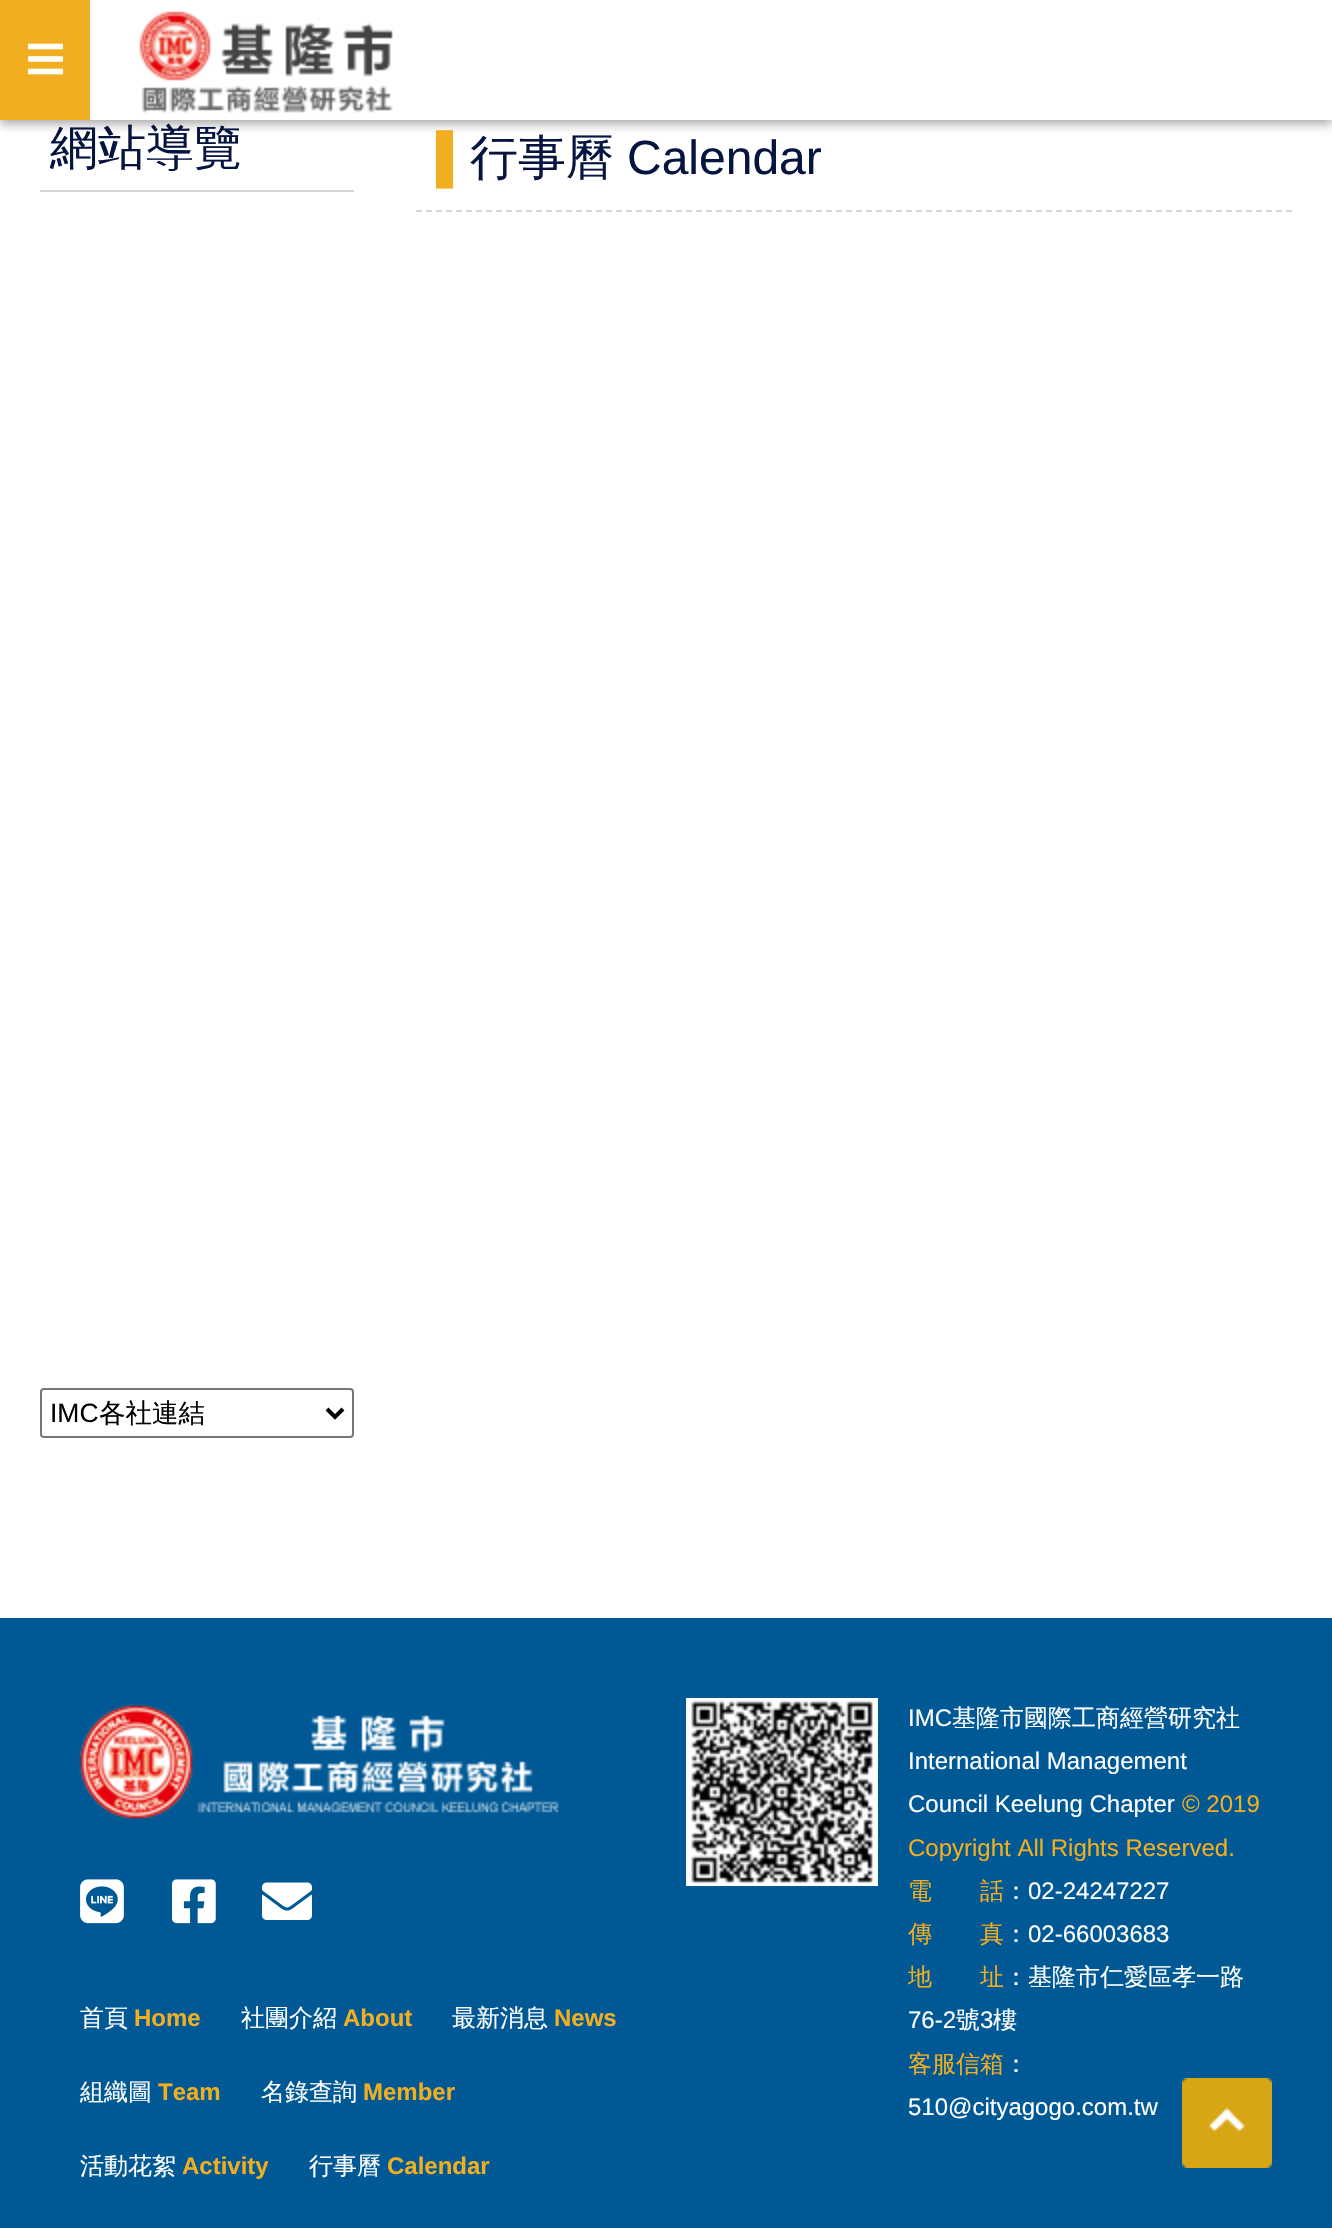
void draw(SkCanvas* canvas) {
  SkPaint paint;
  paint.setAntiAlias(true);
  auto face = [&](const char* family, int weight, float size, bool italic = false) {
    SkFontStyle style(weight, SkFontStyle::kNormal_Width,
      italic ? SkFontStyle::kItalic_Slant : SkFontStyle::kUpright_Slant);
    SkFont result(fontMgr->matchFamilyStyle(family, style), size);
    result.setSubpixel(true);
    return result;
  };
  auto paste = [&](const char* path, float x, float y, float w, float h) {
    auto image = SkImages::DeferredFromEncodedData(SkData::MakeFromFileName(path));
    canvas->drawImageRect(image, SkRect::MakeXYWH(x, y, w, h), SkSamplingOptions());
  };
  auto shape = [&](const char* data, bool evenOdd = false) {
    SkPath result = *SkParsePath::FromSVGString(data);
    if (evenOdd) result.setFillType(SkPathFillType::kEvenOdd);
    return result;
  };
  canvas->clear(0xffffffff);
  paint.setColor(0xad7e7e7e);
  paint.setMaskFilter(SkMaskFilter::MakeBlur(kNormal_SkBlurStyle, 5));
  canvas->drawRect(SkRect::MakeXYWH(0, 4, 1332, 120), paint);
  paint.setMaskFilter(nullptr);
  paint.setColor(0xffffffff);
  canvas->drawRect(SkRect::MakeXYWH(90, 0, 1242, 120), paint);
  paint.setColor(0xfff2ae21);
  canvas->drawRect(SkRect::MakeXYWH(0, 0, 90, 120), paint);
  paste("img/1.png", 28, 43, 35, 32);
  paste("img/2.png", 139, 11, 254, 102);
  paint.setColor(0xffd6d6d6);
  canvas->drawRect(SkRect::MakeXYWH(40, 190, 314, 2), paint);
  paint.setStroke(true);
  paint.setStrokeWidth(2);
  paint.setColor(0xff767676);
  canvas->drawRoundRect(SkRect::MakeXYWH(41, 1389, 312, 48), 3, 3, paint);
  paint.setStrokeWidth(4);
  paint.setColor(0xff000000);
  canvas->drawPath(shape("M327 1409L335 1417L343 1409"), paint);
  paint.setStrokeWidth(2);
  paint.setColor(0xffd6d6d6);
  paint.setPathEffect(SkDashPathEffect::Make({{6, 4}}, 0));
  canvas->drawPath(shape("M416 211H1292"), paint);
  paint.setPathEffect(nullptr);
  paint.setStroke(false);
  paint.setColor(0xff005995);
  canvas->drawRect(SkRect::MakeXYWH(0, 1618, 1332, 610), paint);
  paste("img/3.png", 79, 1705, 480, 114);
  paste("img/4.png", 80, 1879, 44, 45);
  paste("img/5.png", 172, 1879, 44, 45);
  paste("img/6.png", 262, 1882, 50, 38);
  paste("img/7.png", 686, 1698, 192, 188);
  paste("img/8.png", 1182, 2078, 90, 90);
  auto f0 = face("WenQuanYi Zen Hei", 500, 48);
  paint.setColor(0xff061540);
  canvas->drawString("網站導覽", 50, 164, f0, paint);
  auto f1 = face("Liberation Sans", 400, 26.5f);
  paint.setColor(0xff000000);
  canvas->drawString("IMC", 50, 1422, f1, paint);
  auto f2 = face("WenQuanYi Zen Hei", 500, 26.5f);
  canvas->drawString("各社連結", 99, 1422, f2, paint);
  auto f3 = face("Liberation Sans", 400, 48);
  paint.setColor(0xfff2ae21);
  canvas->drawString("▌", 436, 174, f3, paint);
  paint.setColor(0xff061540);
  canvas->drawString("行事曆", 470, 174, f0, paint);
  canvas->drawString("Calendar", 627, 174, f3, paint);
  auto f4 = face("WenQuanYi Zen Hei", 500, 24);
  paint.setColor(0xffffffff);
  canvas->drawString("首頁", 80, 2026, f4, paint);
  auto f5 = face("Liberation Sans", 700, 24);
  paint.setColor(0xfff2ae21);
  canvas->drawString("Home", 134, 2026, f5, paint);
  paint.setColor(0xffffffff);
  canvas->drawString("社團介紹", 241, 2026, f4, paint);
  paint.setColor(0xfff2ae21);
  canvas->drawString("About", 343, 2026, f5, paint);
  paint.setColor(0xffffffff);
  canvas->drawString("最新消息", 452, 2026, f4, paint);
  paint.setColor(0xfff2ae21);
  canvas->drawString("News", 554, 2026, f5, paint);
  paint.setColor(0xffffffff);
  canvas->drawString("組織圖", 80, 2100, f4, paint);
  paint.setColor(0xfff2ae21);
  canvas->drawString("Team", 158, 2100, f5, paint);
  paint.setColor(0xffffffff);
  canvas->drawString("名錄查詢", 261, 2100, f4, paint);
  paint.setColor(0xfff2ae21);
  canvas->drawString("Member", 363, 2100, f5, paint);
  paint.setColor(0xffffffff);
  canvas->drawString("活動花絮", 80, 2174, f4, paint);
  paint.setColor(0xfff2ae21);
  canvas->drawString("Activity", 182, 2174, f5, paint);
  paint.setColor(0xffffffff);
  canvas->drawString("行事曆", 309, 2174, f4, paint);
  paint.setColor(0xfff2ae21);
  canvas->drawString("Calendar", 387, 2174, f5, paint);
  auto f6 = face("Liberation Sans", 400, 24);
  paint.setColor(0xffffffff);
  canvas->drawString("IMC", 908, 1726, f6, paint);
  canvas->drawString("基隆市國際工商經營研究社", 952, 1726, f4, paint);
  canvas->drawString("International Management", 908, 1769, f6, paint);
  canvas->drawString("Council Keelung Chapter", 908, 1812, f6, paint);
  paint.setColor(0xfff2ae21);
  canvas->drawString("© 2019", 1182, 1812, f6, paint);
  canvas->drawString("Copyright All Rights Reserved.", 908, 1856, f6, paint);
  canvas->drawString("電　　話", 908, 1899, f4, paint);
  paint.setColor(0xffffffff);
  canvas->drawString("：", 1004, 1899, f4, paint);
  canvas->drawString("02-24247227", 1028, 1899, f6, paint);
  paint.setColor(0xfff2ae21);
  canvas->drawString("傳　　真", 908, 1942, f4, paint);
  paint.setColor(0xffffffff);
  canvas->drawString("：", 1004, 1942, f4, paint);
  canvas->drawString("02-66003683", 1028, 1942, f6, paint);
  paint.setColor(0xfff2ae21);
  canvas->drawString("地　　址", 908, 1985, f4, paint);
  paint.setColor(0xffffffff);
  canvas->drawString("：基隆市仁愛區孝一路", 1004, 1985, f4, paint);
  canvas->drawString("76-2", 908, 2028, f6, paint);
  canvas->drawString("號", 956, 2028, f4, paint);
  canvas->drawString("3", 980, 2028, f6, paint);
  canvas->drawString("樓", 993, 2028, f4, paint);
  paint.setColor(0xfff2ae21);
  canvas->drawString("客服信箱", 908, 2072, f4, paint);
  paint.setColor(0xffffffff);
  canvas->drawString("：", 1004, 2072, f4, paint);
  canvas->drawString("510@cityagogo.com.tw", 908, 2115, f6, paint);
}
